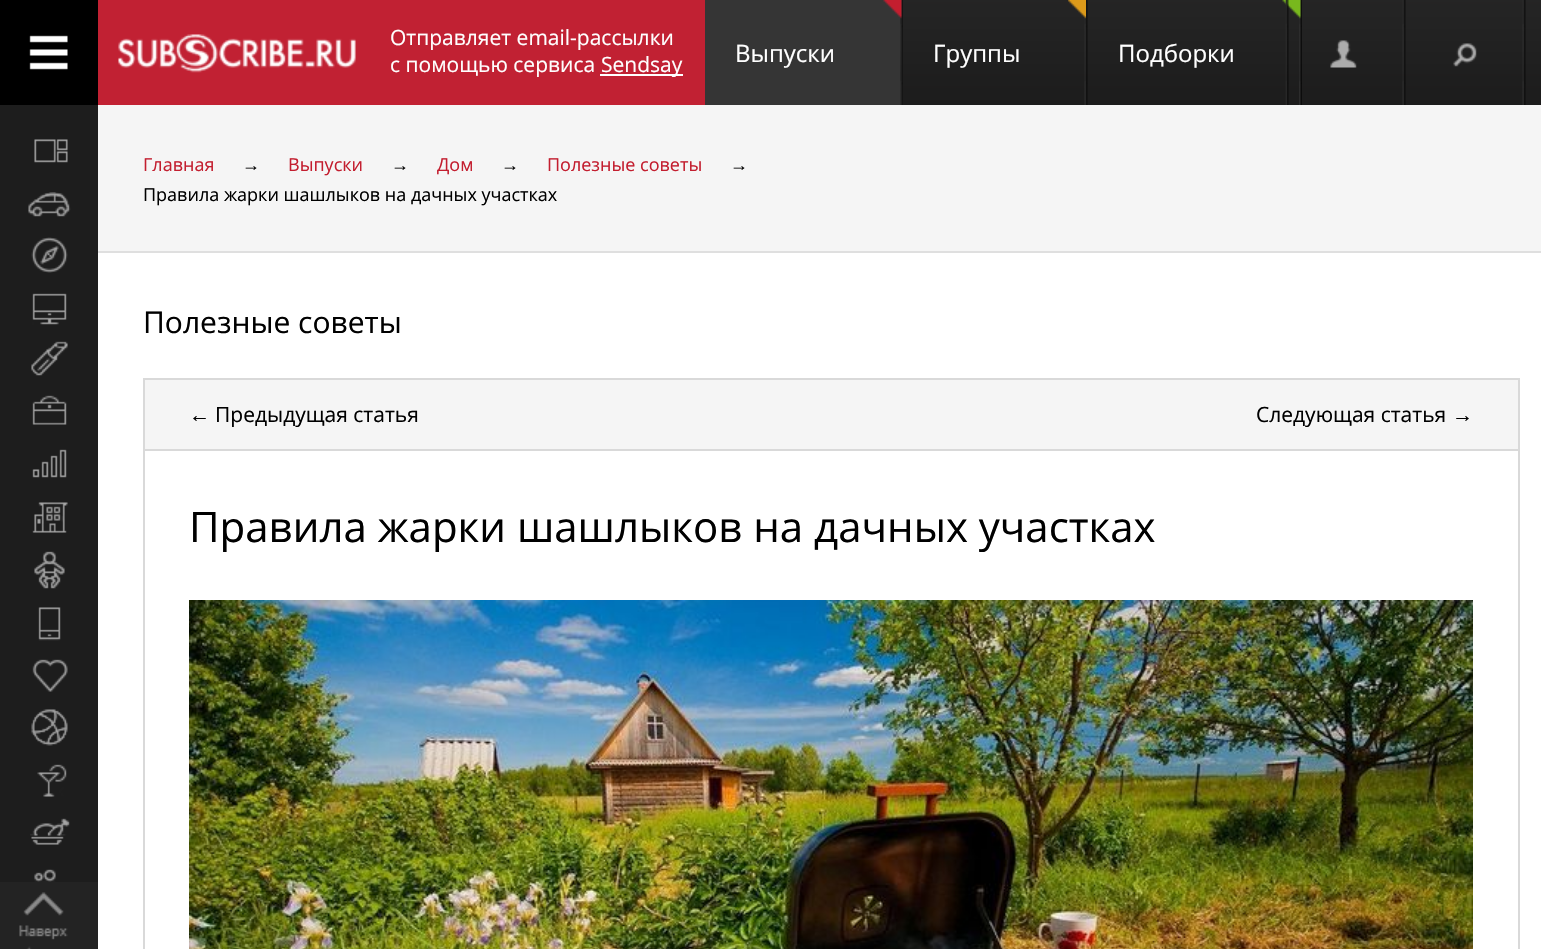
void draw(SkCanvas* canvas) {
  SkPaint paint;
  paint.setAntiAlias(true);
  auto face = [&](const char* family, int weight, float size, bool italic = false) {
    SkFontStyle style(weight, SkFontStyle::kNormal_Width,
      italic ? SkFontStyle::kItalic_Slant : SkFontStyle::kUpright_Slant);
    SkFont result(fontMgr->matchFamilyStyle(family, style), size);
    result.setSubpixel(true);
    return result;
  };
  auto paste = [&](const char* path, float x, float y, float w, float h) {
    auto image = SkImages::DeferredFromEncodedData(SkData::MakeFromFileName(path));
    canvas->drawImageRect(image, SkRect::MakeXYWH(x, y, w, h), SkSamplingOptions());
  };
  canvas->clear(0xffffffff);
  paste("img/1.png", 903, 0, 638, 105);
  paint.setColor(0xff000000);
  canvas->drawRect(SkRect::MakeXYWH(0, 0, 98, 105), paint);
  paste("img/2.png", 29, 35, 39, 35);
  paint.setColor(0xffc12133);
  canvas->drawRect(SkRect::MakeXYWH(98, 0, 607, 105), paint);
  paste("img/3.png", 118, 34, 238, 39);
  paint.setColor(0xffffffff);
  canvas->drawRect(SkRect::MakeXYWH(600, 74, 83, 2), paint);
  paint.setColor(0xff353535);
  canvas->drawRect(SkRect::MakeXYWH(705, 0, 198, 105), paint);
  paste("img/4.png", 900, 0, 3, 105);
  paste("img/5.png", 883, 0, 19, 19);
  paste("img/6.png", 1084, 0, 4, 105);
  paste("img/7.png", 1068, 0, 18, 19);
  paste("img/8.png", 1299, 0, 3, 105);
  paste("img/9.png", 1282, 0, 19, 19);
  paste("img/10.png", 1285, 0, 4, 105);
  paste("img/6.png", 1402, 0, 4, 105);
  paste("img/11.png", 1330, 40, 27, 28);
  paste("img/12.png", 1522, 0, 4, 105);
  paste("img/13.png", 1453, 43, 24, 24);
  paint.setColor(0xff1d1d1d);
  canvas->drawRect(SkRect::MakeXYWH(0, 105, 98, 777), paint);
  paste("img/14.png", 34, 139, 34, 24);
  paste("img/15.png", 28, 192, 43, 25);
  paste("img/16.png", 31, 237, 37, 36);
  paste("img/17.png", 32, 293, 35, 32);
  paste("img/18.png", 31, 341, 37, 35);
  paste("img/19.png", 32, 395, 35, 30);
  paste("img/20.png", 32, 449, 35, 29);
  paste("img/21.png", 32, 502, 36, 31);
  paste("img/22.png", 34, 551, 31, 38);
  paste("img/23.png", 38, 607, 23, 34);
  paste("img/24.png", 32, 659, 36, 33);
  paste("img/25.png", 31, 709, 37, 37);
  paste("img/26.png", 37, 764, 30, 33);
  paste("img/27.png", 30, 818, 40, 27);
  paste("img/28.png", 34, 869, 22, 13);
  {
    const struct { float x, y, w, h; SkColor color; } items[] = {
      {98, 105, 1443, 146, 0xfff5f5f5},
      {98, 251, 1443, 2, 0xffdfdfdf},
      {145, 380, 1373, 69, 0xfff5f5f5},
      {143, 378, 1377, 2, 0xffd9d9d9},
      {1518, 378, 2, 71, 0xffd9d9d9},
      {143, 378, 2, 71, 0xffd9d9d9},
    };
    for (auto [x, y, w, h, color] : items) {
      paint.setColor(color);
      canvas->drawRect(SkRect::MakeXYWH(x, y, w, h), paint);
    }
  }
  paint.setStroke(true);
  paint.setStrokeWidth(2);
  canvas->drawRect(SkRect::MakeXYWH(144, 450, 1375, 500), paint);
  paste("img/29.png", 189, 600, 1284, 349);
  paint.setStroke(false);
  paint.setColor(0xff232323);
  canvas->drawRect(SkRect::MakeXYWH(0, 882, 98, 67), paint);
  paste("img/30.png", 19, 892, 49, 57);
  auto f0 = face("Open Sans", 400, 21);
  paint.setColor(0xffffffff);
  {
    const struct { const char* s; float x, y; } items[] = {
      {"Отправляет email-рассылки", 390, 45},
      {"с помощью сервиса", 390, 72},
      {"Sendsay", 601, 72},
    };
    for (auto [s, x, y] : items) {
      canvas->drawString(s, x, y, f0, paint);
    }
  }
  auto f1 = face("Open Sans", 400, 24);
  {
    const struct { const char* s; float x, y; } items[] = {
      {"Выпуски", 735, 62},
      {"Группы", 933, 62},
      {"Подборки", 1118, 62},
    };
    for (auto [s, x, y] : items) {
      canvas->drawString(s, x, y, f1, paint);
    }
  }
  auto f2 = face("Open Sans", 400, 18);
  paint.setColor(0xffc31e2f);
  canvas->drawString("Главная", 143, 171, f2, paint);
  auto f3 = face("Liberation Sans", 400, 18);
  paint.setColor(0xff000000);
  canvas->drawString("→", 242, 171, f3, paint);
  paint.setColor(0xffc31e2f);
  canvas->drawString("Выпуски", 288, 171, f2, paint);
  paint.setColor(0xff000000);
  canvas->drawString("→", 391, 171, f3, paint);
  paint.setColor(0xffc31e2f);
  canvas->drawString("Дом", 437, 171, f2, paint);
  paint.setColor(0xff000000);
  canvas->drawString("→", 501, 171, f3, paint);
  paint.setColor(0xffc31e2f);
  canvas->drawString("Полезные советы", 547, 171, f2, paint);
  paint.setColor(0xff000000);
  canvas->drawString("→", 730, 171, f3, paint);
  canvas->drawString("Правила жарки шашлыков на дачных участках", 143, 201, f2, paint);
  auto f4 = face("Open Sans", 400, 30);
  canvas->drawString("Полезные советы", 143, 333, f4, paint);
  auto f5 = face("Liberation Sans", 400, 21);
  canvas->drawString("←", 189, 422, f5, paint);
  canvas->drawString("Предыдущая статья", 215, 422, f0, paint);
  canvas->drawString("Следующая статья", 1256, 422, f0, paint);
  canvas->drawString("→", 1452, 422, f5, paint);
  auto f6 = face("Open Sans", 400, 42);
  canvas->drawString("Правила жарки шашлыков на дачных участках", 189, 542, f6, paint);
}
